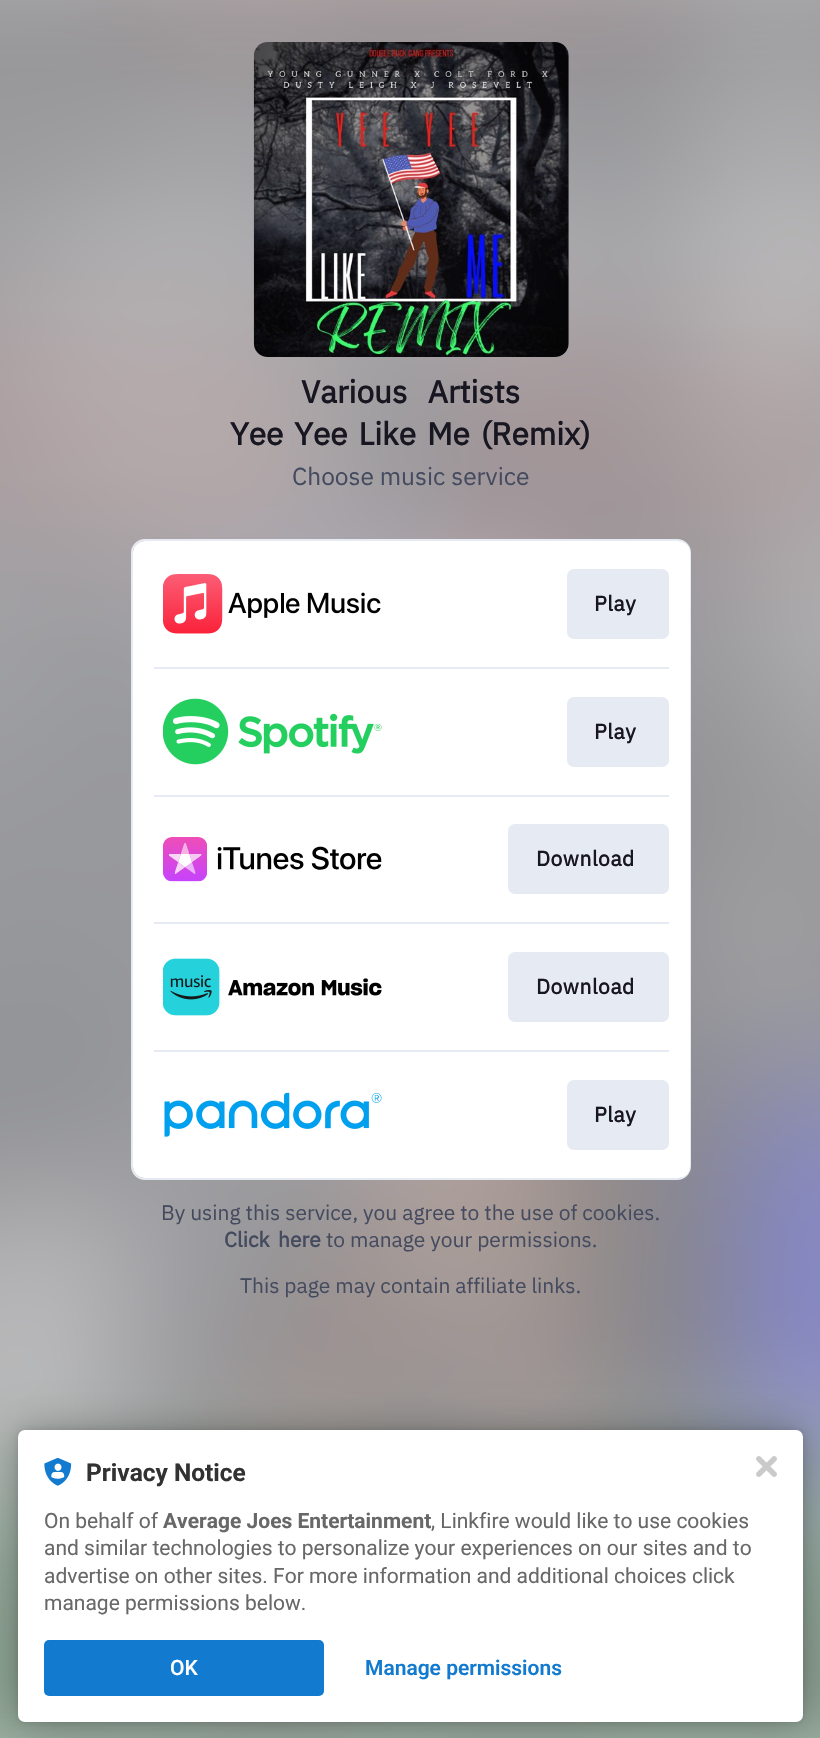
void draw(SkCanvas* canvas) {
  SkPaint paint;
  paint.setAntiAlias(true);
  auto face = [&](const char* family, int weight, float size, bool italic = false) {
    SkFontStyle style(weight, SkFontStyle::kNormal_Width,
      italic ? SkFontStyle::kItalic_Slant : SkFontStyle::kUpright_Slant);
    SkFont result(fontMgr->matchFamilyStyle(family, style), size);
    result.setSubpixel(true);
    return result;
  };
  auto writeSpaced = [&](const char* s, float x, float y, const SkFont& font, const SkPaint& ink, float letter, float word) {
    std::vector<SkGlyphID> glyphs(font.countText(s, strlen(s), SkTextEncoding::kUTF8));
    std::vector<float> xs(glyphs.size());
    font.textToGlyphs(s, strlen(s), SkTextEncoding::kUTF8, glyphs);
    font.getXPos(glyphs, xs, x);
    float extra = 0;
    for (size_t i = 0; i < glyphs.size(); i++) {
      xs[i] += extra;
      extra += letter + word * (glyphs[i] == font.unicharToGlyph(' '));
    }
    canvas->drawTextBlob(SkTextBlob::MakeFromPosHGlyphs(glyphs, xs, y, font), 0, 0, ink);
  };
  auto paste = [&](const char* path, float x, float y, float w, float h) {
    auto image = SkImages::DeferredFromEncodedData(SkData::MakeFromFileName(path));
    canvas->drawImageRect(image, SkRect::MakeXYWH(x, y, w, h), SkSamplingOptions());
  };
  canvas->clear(0xffffffff);
  paste("img/1.png", 0, 0, 820, 1738);
  paste("img/2.png", 253, 42, 316, 315);
  paint.setStroke(true);
  paint.setStrokeWidth(2);
  paint.setColor(0xffe6eaf2);
  canvas->drawRoundRect(SkRect::MakeXYWH(132, 540, 558, 639), 13, 13, paint);
  paint.setStroke(false);
  paint.setColor(0xffffffff);
  canvas->drawRoundRect(SkRect::MakeXYWH(133, 541, 557, 637), 12, 12, paint);
  paste("img/3.png", 163, 574, 218, 60);
  paint.setColor(0xffe6eaf2);
  canvas->drawRoundRect(SkRect::MakeXYWH(567, 569, 102, 70), 7, 7, paint);
  canvas->drawRect(SkRect::MakeXYWH(154, 667, 515, 2), paint);
  paste("img/4.png", 163, 698, 219, 67);
  canvas->drawRoundRect(SkRect::MakeXYWH(567, 697, 102, 70), 7, 7, paint);
  canvas->drawRect(SkRect::MakeXYWH(154, 795, 515, 2), paint);
  paste("img/5.png", 163, 837, 219, 45);
  canvas->drawRoundRect(SkRect::MakeXYWH(508, 824, 161, 70), 7, 7, paint);
  canvas->drawRect(SkRect::MakeXYWH(154, 922, 515, 2), paint);
  paste("img/6.png", 163, 958, 219, 58);
  canvas->drawRoundRect(SkRect::MakeXYWH(508, 952, 161, 70), 7, 7, paint);
  canvas->drawRect(SkRect::MakeXYWH(154, 1050, 515, 2), paint);
  paste("img/7.png", 164, 1092, 218, 45);
  canvas->drawRoundRect(SkRect::MakeXYWH(567, 1080, 102, 70), 7, 7, paint);
  paint.setColor(0x1f000000);
  paint.setMaskFilter(SkMaskFilter::MakeBlur(kNormal_SkBlurStyle, 3.5f));
  canvas->drawRoundRect(SkRect::MakeXYWH(18, 1430, 785, 292), 7, 7, paint);
  paint.setMaskFilter(nullptr);
  paint.setColor(0x4d000000);
  paint.setMaskFilter(SkMaskFilter::MakeBlur(kNormal_SkBlurStyle, 21));
  canvas->drawRoundRect(SkRect::MakeXYWH(18, 1430, 785, 292), 7, 7, paint);
  paint.setMaskFilter(nullptr);
  paint.setColor(0xffffffff);
  canvas->drawRoundRect(SkRect::MakeXYWH(18, 1430, 785, 292), 7, 7, paint);
  paste("img/8.png", 44, 1458, 28, 28);
  paint.setColor(0xff137bcf);
  canvas->drawRoundRect(SkRect::MakeXYWH(44, 1640, 280, 56), 5, 5, paint);
  paste("img/9.png", 756, 1456, 21, 21);
  auto f0 = face("IBM Plex Sans", 700, 31.5f);
  paint.setColor(0xff181721);
  writeSpaced("Various Artists", 301, 403, f0, paint, 0, 13);
  writeSpaced("Yee Yee Like Me (Remix)", 230, 445, f0, paint, 0, 3.5f);
  auto f1 = face("IBM Plex Sans", 400, 24.5f);
  paint.setColor(0xff454b5f);
  canvas->drawString("Choose music service", 292, 485, f1, paint);
  auto f2 = face("IBM Plex Sans", 700, 21);
  paint.setColor(0xff181721);
  {
    const struct { const char* s; float x, y; } items[] = {
      {"Play", 594, 611},
      {"Play", 594, 739},
      {"Download", 536, 866},
      {"Download", 536, 994},
      {"Play", 594, 1122},
    };
    for (auto [s, x, y] : items) {
      writeSpaced(s, x, y, f2, paint, 0.5f, 0);
    }
  }
  auto f3 = face("IBM Plex Sans", 400, 21);
  paint.setColor(0xff454b5f);
  canvas->drawString("By using this service, you agree to the use of cookies.", 161, 1220, f3, paint);
  writeSpaced("Click here", 224, 1247, f2, paint, 0, 3.5f);
  canvas->drawString("to manage your permissions.", 326, 1247, f3, paint);
  canvas->drawString("This page may contain affiliate links.", 240, 1293, f3, paint);
  auto f4 = face("Roboto", 700, 24.5f);
  paint.setColor(0xff323232);
  canvas->drawString("Privacy Notice", 86, 1481, f4, paint);
  auto f5 = face("Roboto", 400, 21);
  paint.setColor(0xff686868);
  canvas->drawString("On behalf of", 44, 1528, f5, paint);
  auto f6 = face("Roboto", 700, 21);
  canvas->drawString("Average Joes Entertainment", 163, 1528, f6, paint);
  {
    const struct { const char* s; float x, y; } items[] = {
      {", Linkfire would like to use cookies", 431, 1528},
      {"and similar technologies to personalize your experiences on our sites and to", 44, 1555},
      {"advertise on other sites. For more information and additional choices click", 44, 1583},
      {"manage permissions below.", 44, 1610},
    };
    for (auto [s, x, y] : items) {
      canvas->drawString(s, x, y, f5, paint);
    }
  }
  auto f7 = face("Roboto", 500, 21);
  paint.setColor(0xffffffff);
  canvas->drawString("OK", 170, 1675, f7, paint);
  auto f8 = face("Roboto", 600, 21);
  paint.setColor(0xff137bcf);
  canvas->drawString("Manage permissions", 365, 1675, f8, paint);
}
